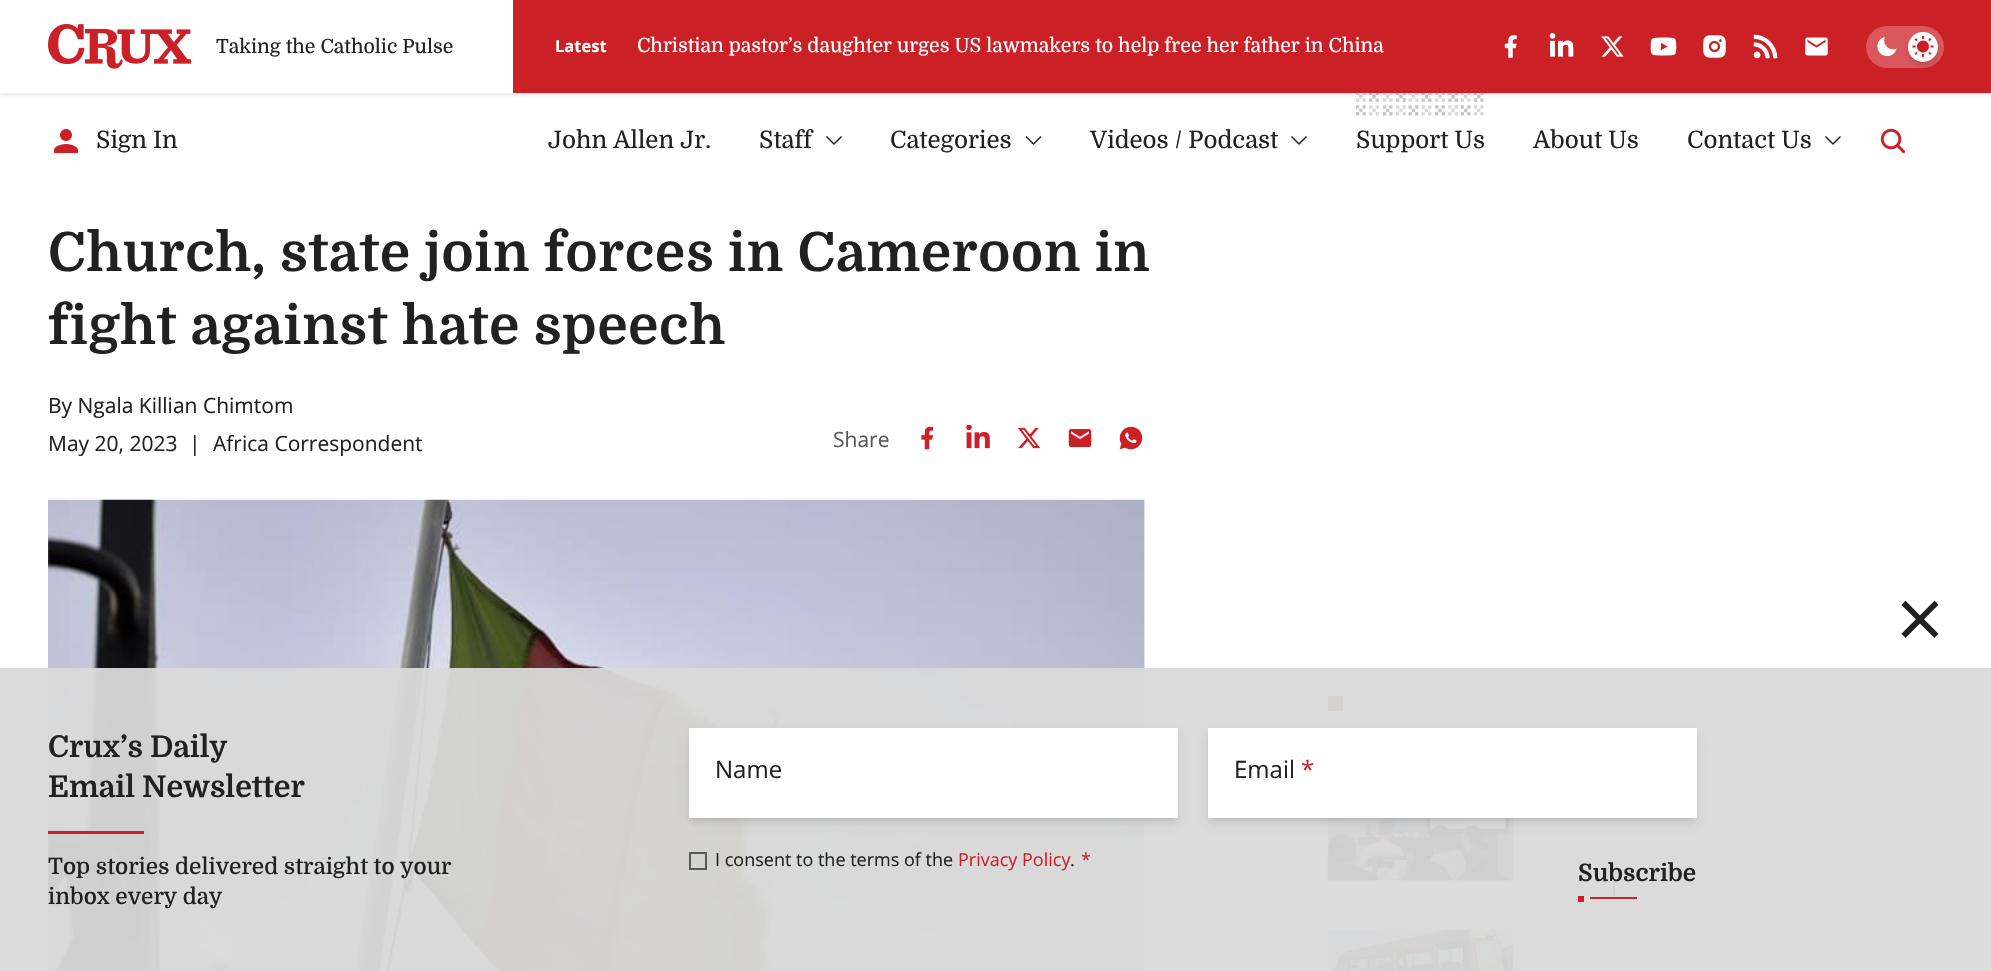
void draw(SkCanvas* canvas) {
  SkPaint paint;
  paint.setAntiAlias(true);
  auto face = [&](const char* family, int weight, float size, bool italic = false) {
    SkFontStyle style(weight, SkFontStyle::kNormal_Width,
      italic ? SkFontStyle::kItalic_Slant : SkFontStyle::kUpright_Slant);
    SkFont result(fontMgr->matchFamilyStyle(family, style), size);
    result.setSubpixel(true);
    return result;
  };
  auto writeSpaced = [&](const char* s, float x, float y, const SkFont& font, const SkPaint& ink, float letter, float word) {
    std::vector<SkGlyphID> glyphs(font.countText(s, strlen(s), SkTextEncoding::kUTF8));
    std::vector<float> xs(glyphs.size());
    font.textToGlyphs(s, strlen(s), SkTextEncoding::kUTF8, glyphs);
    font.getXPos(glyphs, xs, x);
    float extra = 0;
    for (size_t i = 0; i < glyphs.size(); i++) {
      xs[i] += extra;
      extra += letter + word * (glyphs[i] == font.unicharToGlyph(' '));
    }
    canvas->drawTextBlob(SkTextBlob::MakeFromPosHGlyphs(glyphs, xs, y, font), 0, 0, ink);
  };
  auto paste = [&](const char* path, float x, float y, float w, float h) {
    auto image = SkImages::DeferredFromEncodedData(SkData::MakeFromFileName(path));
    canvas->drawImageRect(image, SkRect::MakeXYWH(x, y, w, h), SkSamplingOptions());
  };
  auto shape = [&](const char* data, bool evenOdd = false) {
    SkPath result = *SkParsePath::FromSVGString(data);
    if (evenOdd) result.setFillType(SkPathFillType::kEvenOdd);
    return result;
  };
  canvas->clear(0xffffffff);
  paste("img/12.png", 1356, 93, 128, 23);
  canvas->save();
  canvas->clipRect(SkRect::MakeXYWH(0, 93, 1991, 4));
  paint.setColor(0x1a000000);
  paint.setMaskFilter(SkMaskFilter::MakeBlur(kNormal_SkBlurStyle, 2));
  canvas->drawRect(SkRect::MakeXYWH(0, 2, 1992, 93), paint);
  paint.setMaskFilter(nullptr);
  canvas->restore();
  paste("img/1.png", 48, 24, 144, 45);
  paint.setColor(0xffcc2027);
  canvas->drawRect(SkRect::MakeXYWH(513, 0, 1478, 93), paint);
  paste("img/2.png", 1504, 35, 13, 23);
  paste("img/3.png", 1549, 33, 25, 24);
  paste("img/4.png", 1601, 36, 23, 21);
  paste("img/5.png", 1650, 37, 27, 19);
  paste("img/6.png", 1703, 35, 23, 23);
  paste("img/7.png", 1753, 34, 25, 25);
  paste("img/8.png", 1805, 37, 23, 19);
  paint.setColor(0xffd9585d);
  canvas->drawRoundRect(SkRect::MakeXYWH(1866, 26, 78, 42), 21, 21, paint);
  paint.setColor(0x1a000000);
  paint.setMaskFilter(SkMaskFilter::MakeBlur(kNormal_SkBlurStyle, 3));
  canvas->drawRoundRect(SkRect::MakeXYWH(1911, 38, 24, 24), 12, 12, paint);
  paint.setMaskFilter(nullptr);
  canvas->save();
  canvas->clipRect(SkRect::MakeXYWH(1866, 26, 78, 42));
  paint.setMaskFilter(SkMaskFilter::MakeBlur(kNormal_SkBlurStyle, 4.5f));
  canvas->drawRoundRect(SkRect::MakeXYWH(1910, 39, 27, 27), 13.5f, 13.5f, paint);
  paint.setMaskFilter(nullptr);
  canvas->restore();
  paint.setColor(0xffffffff);
  canvas->drawCircle(1923, 47, 15, paint);
  paste("img/9.png", 1877, 37, 20, 20);
  paste("img/10.png", 1912, 36, 22, 21);
  paste("img/11.png", 54, 129, 24, 24);
  paint.setStroke(true);
  paint.setStrokeWidth(1.5f);
  paint.setColor(0xff212121);
  canvas->drawPath(shape("M826.5 136.5L834 144L841.5 136.5"), paint);
  canvas->drawPath(shape("M1026 136.5L1033.5 144L1041 136.5"), paint);
  canvas->drawPath(shape("M1291.5 136.5L1299 144L1306.5 136.5"), paint);
  canvas->drawPath(shape("M1825.5 136.5L1833 144L1840.5 136.5"), paint);
  paste("img/13.png", 1880, 128, 26, 26);
  paste("img/14.png", 921, 426, 13, 24);
  paste("img/15.png", 966, 425, 24, 24);
  paste("img/16.png", 1017, 427, 24, 22);
  paste("img/17.png", 1068, 429, 24, 18);
  paste("img/18.png", 1119, 426, 24, 24);
  paint.setStroke(false);
  paint.setColor(0xfff2f3f3);
  canvas->drawRect(SkRect::MakeXYWH(1144, 500, 1, 471), paint);
  paste("img/19.png", 48, 499, 1097, 472);
  {
    const struct { float x, y, w, h; SkColor color; } items[] = {
      {1697, 744, 175, 2, 0xffd9d9d9},
      {1328, 696, 15, 15, 0xffcc2027},
      {1328, 818, 186, 63, 0xfff2f3f3},
    };
    for (auto [x, y, w, h, color] : items) {
      paint.setColor(color);
      canvas->drawRect(SkRect::MakeXYWH(x, y, w, h), paint);
    }
  }
  paste("img/20.png", 1327, 818, 187, 63);
  paint.setColor(0xff212121);
  canvas->drawRect(SkRect::MakeXYWH(1613, 879, 2, 17), paint);
  paint.setColor(0xfff2f3f3);
  canvas->drawRect(SkRect::MakeXYWH(1513, 930, 1, 41), paint);
  paste("img/21.png", 1327, 930, 187, 41);
  paint.setColor(0xf2d9d9d9);
  canvas->drawRect(SkRect::MakeXYWH(0, 668, 1991, 303), paint);
  paint.setColor(0xffcc2027);
  canvas->drawRect(SkRect::MakeXYWH(48, 831, 96, 3), paint);
  paint.setColor(0x1a000000);
  paint.setMaskFilter(SkMaskFilter::MakeBlur(kNormal_SkBlurStyle, 3));
  canvas->drawRect(SkRect::MakeXYWH(692, 734, 483, 84), paint);
  paint.setMaskFilter(nullptr);
  paint.setMaskFilter(SkMaskFilter::MakeBlur(kNormal_SkBlurStyle, 4.5f));
  canvas->drawRect(SkRect::MakeXYWH(690, 735, 486, 87), paint);
  paint.setMaskFilter(nullptr);
  paint.setColor(0xffffffff);
  canvas->drawRect(SkRect::MakeXYWH(689, 728, 489, 90), paint);
  paint.setColor(0x1a000000);
  paint.setMaskFilter(SkMaskFilter::MakeBlur(kNormal_SkBlurStyle, 3));
  canvas->drawRect(SkRect::MakeXYWH(1211, 734, 483, 84), paint);
  paint.setMaskFilter(nullptr);
  paint.setMaskFilter(SkMaskFilter::MakeBlur(kNormal_SkBlurStyle, 4.5f));
  canvas->drawRect(SkRect::MakeXYWH(1209, 735, 486, 87), paint);
  paint.setMaskFilter(nullptr);
  paint.setColor(0xffffffff);
  canvas->drawRect(SkRect::MakeXYWH(1208, 728, 489, 90), paint);
  paint.setStroke(true);
  paint.setStrokeWidth(2);
  paint.setColor(0xff57595b);
  canvas->drawRect(SkRect::MakeXYWH(690, 853, 16, 16), paint);
  paint.setStroke(false);
  paint.setColor(0xffcc2027);
  canvas->drawRect(SkRect::MakeXYWH(1578, 896, 6, 6), paint);
  canvas->drawRect(SkRect::MakeXYWH(1590, 897, 47, 2), paint);
  auto f0 = face("Domine", 400, 19.5f);
  paint.setColor(0xff212121);
  canvas->drawString("Taking the Catholic Pulse", 216, 53, f0, paint);
  auto f1 = face("Open Sans", 700, 16.5f);
  paint.setColor(0xffffffff);
  canvas->drawString("Latest", 555, 52, f1, paint);
  canvas->drawString("Christian pastor’s daughter urges US lawmakers to help free her father in China", 637, 52, f0, paint);
  auto f2 = face("Domine", 400, 24);
  paint.setColor(0xff212121);
  {
    const struct { const char* s; float x, y; } items[] = {
      {"Sign In", 96, 148},
      {"John Allen Jr.", 548, 148},
      {"Staff", 759, 148},
      {"Categories", 890, 148},
      {"Videos / Podcast", 1090, 148},
      {"Support Us", 1356, 148},
      {"About Us", 1533, 148},
      {"Contact Us", 1687, 148},
    };
    for (auto [s, x, y] : items) {
      canvas->drawString(s, x, y, f2, paint);
    }
  }
  auto f3 = face("Domine", 700, 54);
  writeSpaced("Church, state join forces in Cameroon in", 48, 271, f3, paint, 0.8f, 0);
  writeSpaced("fight against hate speech", 48, 344, f3, paint, 0.8f, 0);
  auto f4 = face("Open Sans", 400, 21);
  {
    const struct { const char* s; float x, y; } items[] = {
      {"By Ngala Killian Chimtom", 48, 413},
      {"May 20, 2023", 48, 451},
      {"|", 189, 451},
      {"Africa Correspondent", 213, 451},
    };
    for (auto [s, x, y] : items) {
      canvas->drawString(s, x, y, f4, paint);
    }
  }
  paint.setColor(0xff57595b);
  canvas->drawString("Share", 833, 447, f4, paint);
  auto f5 = face("Open Sans", 400, 84);
  paint.setColor(0xff212121);
  canvas->drawString("×", 1896, 649, f5, paint);
  auto f6 = face("Domine", 700, 30);
  canvas->drawString("Crux’s Daily", 48, 757, f6, paint);
  canvas->drawString("Email Newsletter", 48, 797, f6, paint);
  auto f7 = face("Domine", 500, 22.5f);
  canvas->drawString("Top stories delivered straight to your", 48, 874, f7, paint);
  canvas->drawString("inbox every day", 48, 904, f7, paint);
  auto f8 = face("Open Sans", 400, 24);
  canvas->drawString("Name", 715, 778, f8, paint);
  canvas->drawString("Email", 1234, 778, f8, paint);
  paint.setColor(0xffcc2027);
  canvas->drawString("*", 1301, 778, f8, paint);
  auto f9 = face("Open Sans", 400, 18);
  paint.setColor(0xff212121);
  canvas->drawString("I consent to the terms of the", 715, 866, f9, paint);
  paint.setColor(0xffcc2027);
  canvas->drawString("Privacy Policy", 958, 866, f9, paint);
  canvas->drawString("*", 1081, 866, f9, paint);
  paint.setColor(0xff212121);
  canvas->drawString(".", 1070, 866, f9, paint);
  auto f10 = face("Domine", 700, 24);
  canvas->drawString("Subscribe", 1578, 881, f10, paint);
}
